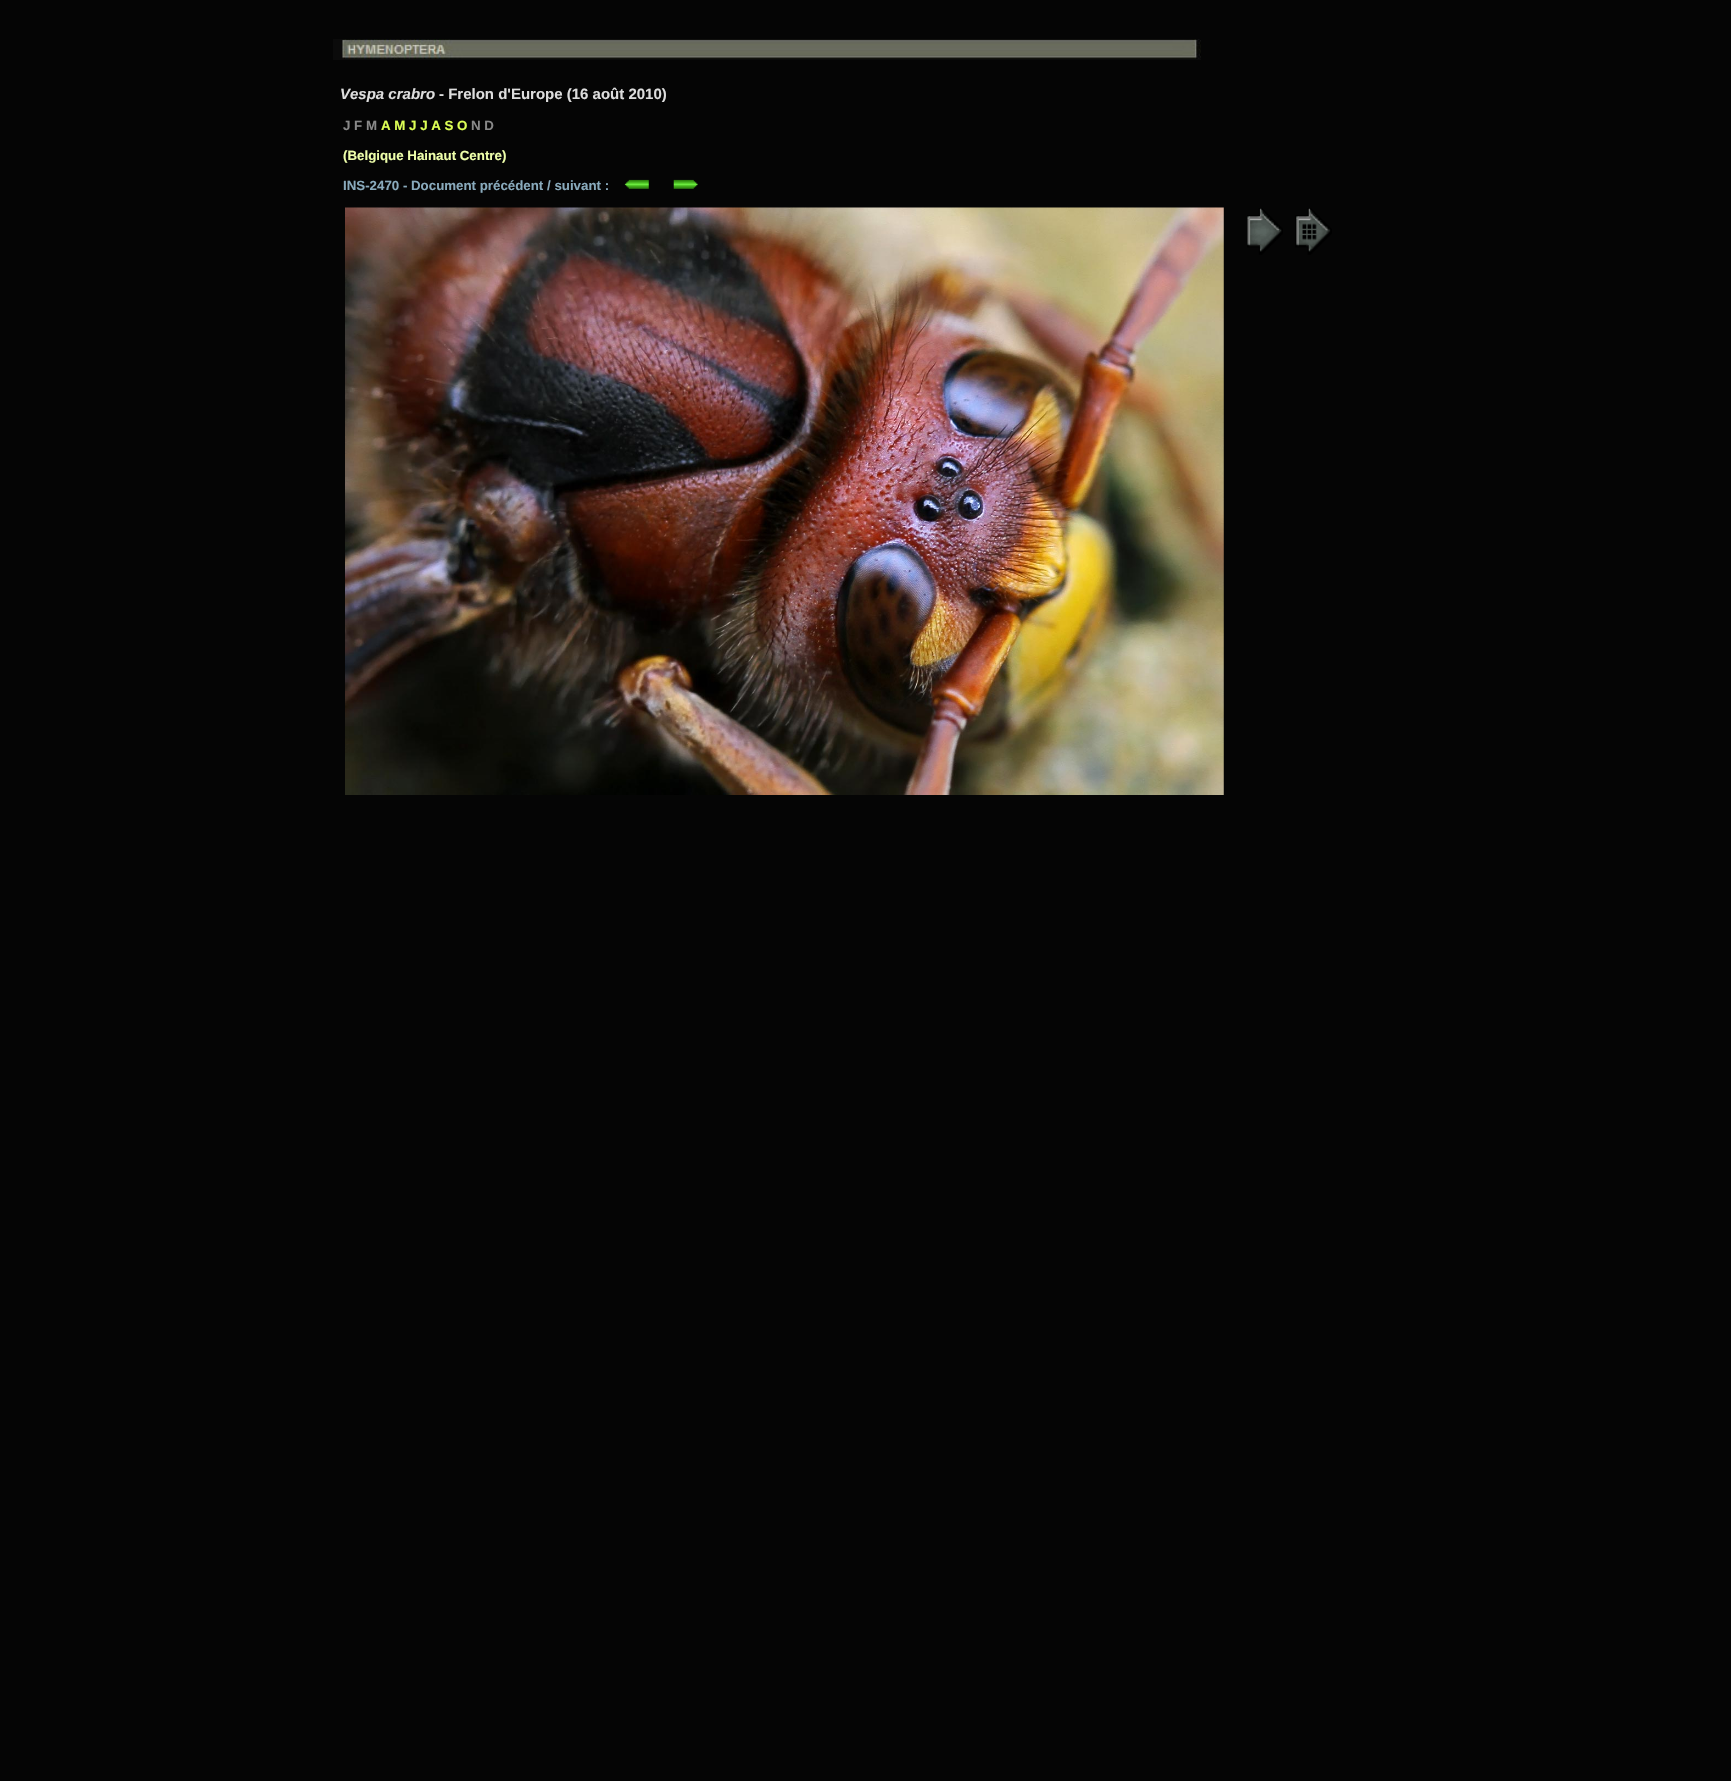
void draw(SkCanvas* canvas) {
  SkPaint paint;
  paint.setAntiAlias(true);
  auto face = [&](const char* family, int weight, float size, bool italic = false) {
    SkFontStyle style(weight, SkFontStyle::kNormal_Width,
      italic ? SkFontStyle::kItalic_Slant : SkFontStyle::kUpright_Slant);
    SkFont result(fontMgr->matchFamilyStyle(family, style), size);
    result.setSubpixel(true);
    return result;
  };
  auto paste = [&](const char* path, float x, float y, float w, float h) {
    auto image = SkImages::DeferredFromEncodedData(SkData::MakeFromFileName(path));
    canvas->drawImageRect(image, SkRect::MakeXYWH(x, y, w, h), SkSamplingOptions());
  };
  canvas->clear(0xff050505);
  paste("img/1.png", 333, 39, 868, 21);
  paste("img/2.png", 624, 179, 25, 10);
  paste("img/3.png", 673, 179, 25, 10);
  paste("img/4.png", 345, 207, 879, 588);
  paste("img/5.png", 1247, 208, 36, 47);
  paste("img/6.png", 1295, 208, 37, 47);
  auto f0 = face("Liberation Sans", 700, 15, true);
  paint.setColor(0xffdddddd);
  canvas->drawString("Vespa crabro", 340, 99, f0, paint);
  auto f1 = face("Liberation Sans", 700, 15);
  canvas->drawString("- Frelon d'Europe (16 août 2010)", 439, 99, f1, paint);
  auto f2 = face("Liberation Sans", 700, 13.3f);
  paint.setColor(0xff888888);
  canvas->drawString("J F M", 343, 130, f2, paint);
  paint.setColor(0xffddff55);
  canvas->drawString("A M J J A S O", 381, 130, f2, paint);
  paint.setColor(0xff888888);
  canvas->drawString("N D", 471, 130, f2, paint);
  paint.setColor(0xffeeffaa);
  canvas->drawString("(Belgique Hainaut Centre)", 343, 160, f2, paint);
  paint.setColor(0xff89aabc);
  canvas->drawString("INS-2470 - Document précédent / suivant :", 343, 190, f2, paint);
}
